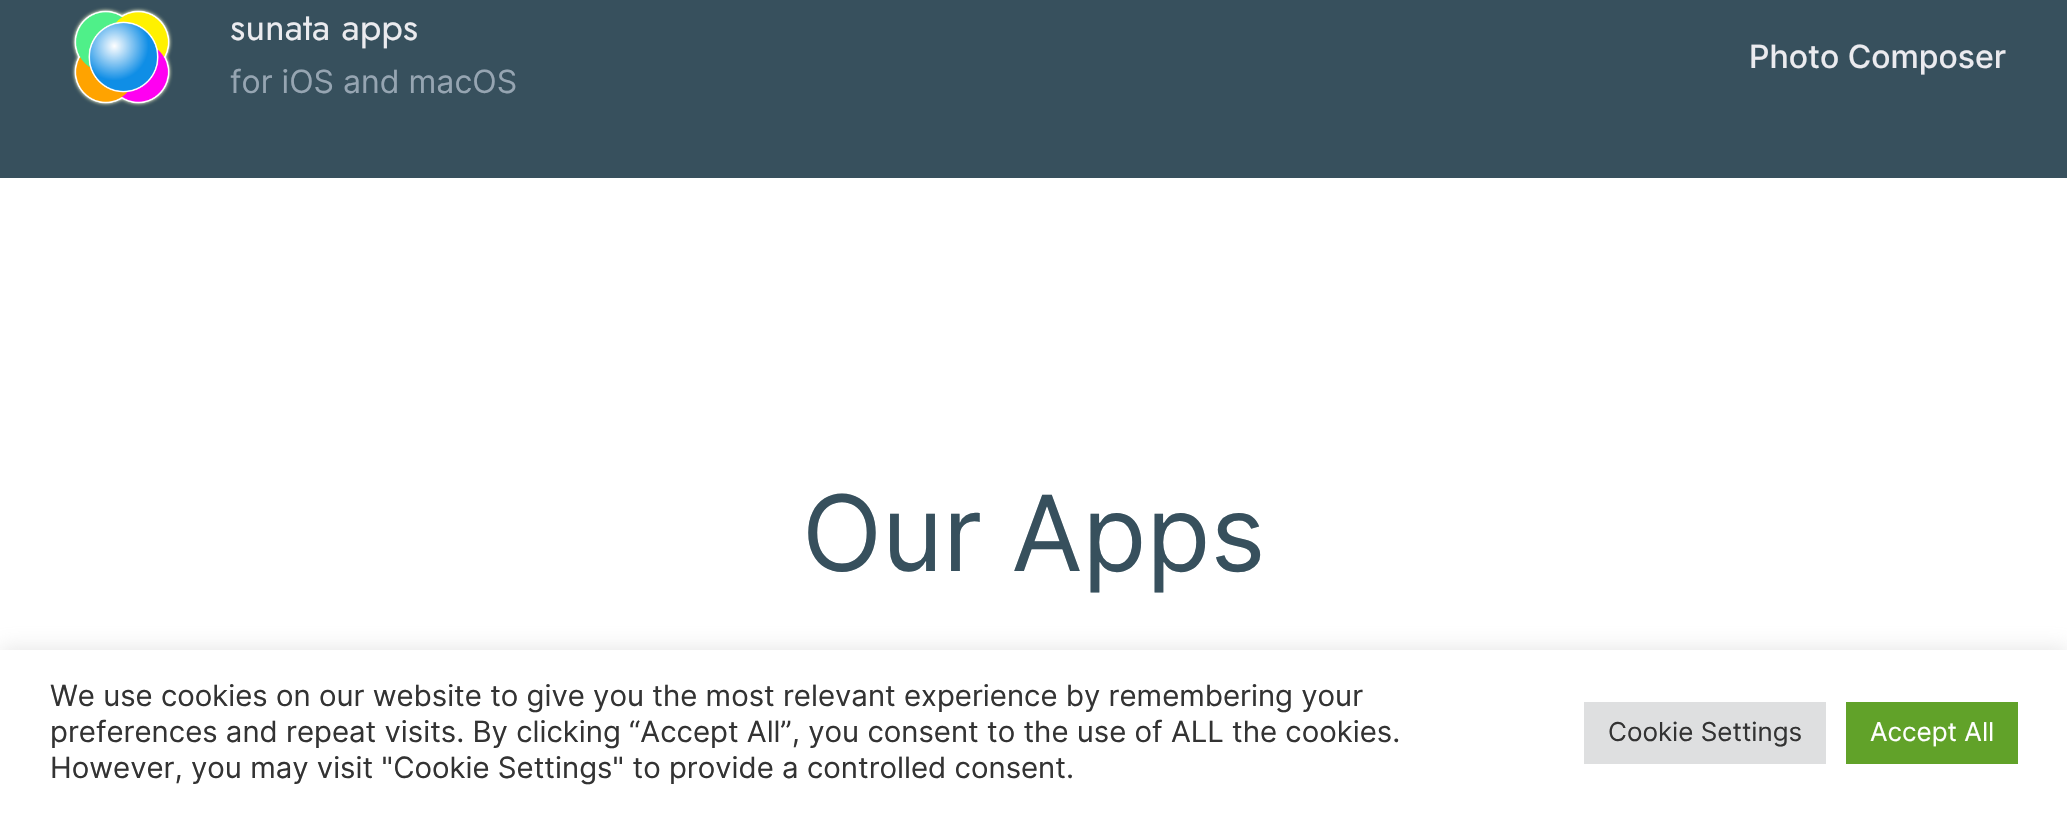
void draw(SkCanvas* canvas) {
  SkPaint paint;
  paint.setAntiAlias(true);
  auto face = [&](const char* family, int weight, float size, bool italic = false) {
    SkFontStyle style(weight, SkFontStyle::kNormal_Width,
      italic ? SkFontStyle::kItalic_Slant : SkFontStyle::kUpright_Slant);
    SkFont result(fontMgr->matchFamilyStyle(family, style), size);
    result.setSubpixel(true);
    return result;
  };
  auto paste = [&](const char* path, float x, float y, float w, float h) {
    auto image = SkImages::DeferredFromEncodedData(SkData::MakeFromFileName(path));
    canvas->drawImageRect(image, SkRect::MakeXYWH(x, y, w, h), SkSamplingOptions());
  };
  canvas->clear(0xffffffff);
  paint.setColor(0xff37505d);
  canvas->drawRect(SkRect::MakeXYWH(0, 0, 2067, 178), paint);
  paste("img/1.png", 71, 7, 102, 100);
  paint.setColor(0x4dacabab);
  paint.setMaskFilter(SkMaskFilter::MakeBlur(kNormal_SkBlurStyle, 10));
  canvas->drawRect(SkRect::MakeXYWH(0, 648, 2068, 164), paint);
  paint.setMaskFilter(nullptr);
  {
    const struct { float x, y, w, h; SkColor color; } items[] = {
      {0, 650, 2067, 164, 0xffffffff},
      {1584, 702, 242, 62, 0xffdedfe0},
      {1846, 702, 172, 62, 0xff61a229},
    };
    for (auto [x, y, w, h, color] : items) {
      paint.setColor(color);
      canvas->drawRect(SkRect::MakeXYWH(x, y, w, h), paint);
    }
  }
  auto f0 = face("Jost", 400, 37.75f);
  paint.setColor(0xffebebef);
  canvas->drawString("sunata apps", 230, 40, f0, paint);
  auto f1 = face("Inter", 400, 32);
  paint.setColor(0xff96a5b2);
  canvas->drawString("for iOS and macOS", 230, 93, f1, paint);
  auto f2 = face("Inter", 500, 32);
  paint.setColor(0xffebebef);
  canvas->drawString("Photo Composer", 1749, 68, f2, paint);
  auto f3 = face("Inter", 400, 105);
  paint.setColor(0xff37505d);
  canvas->drawString("Our Apps", 802, 571, f3, paint);
  auto f4 = face("Inter", 400, 29.35f);
  paint.setColor(0xff333333);
  {
    const struct { const char* s; float x, y; } items[] = {
      {"We use cookies on our website to give you the most relevant experience by remembering your", 50, 706},
      {"preferences and repeat visits. By clicking “Accept All”, you consent to the use of ALL the cookies.", 50, 742},
      {"However, you may visit \"Cookie Settings\" to provide a controlled consent.", 50, 778},
    };
    for (auto [s, x, y] : items) {
      canvas->drawString(s, x, y, f4, paint);
    }
  }
  auto f5 = face("Inter", 400, 26);
  canvas->drawString("Cookie Settings", 1608, 741, f5, paint);
  paint.setColor(0xffffffff);
  canvas->drawString("Accept All", 1870, 741, f5, paint);
}
